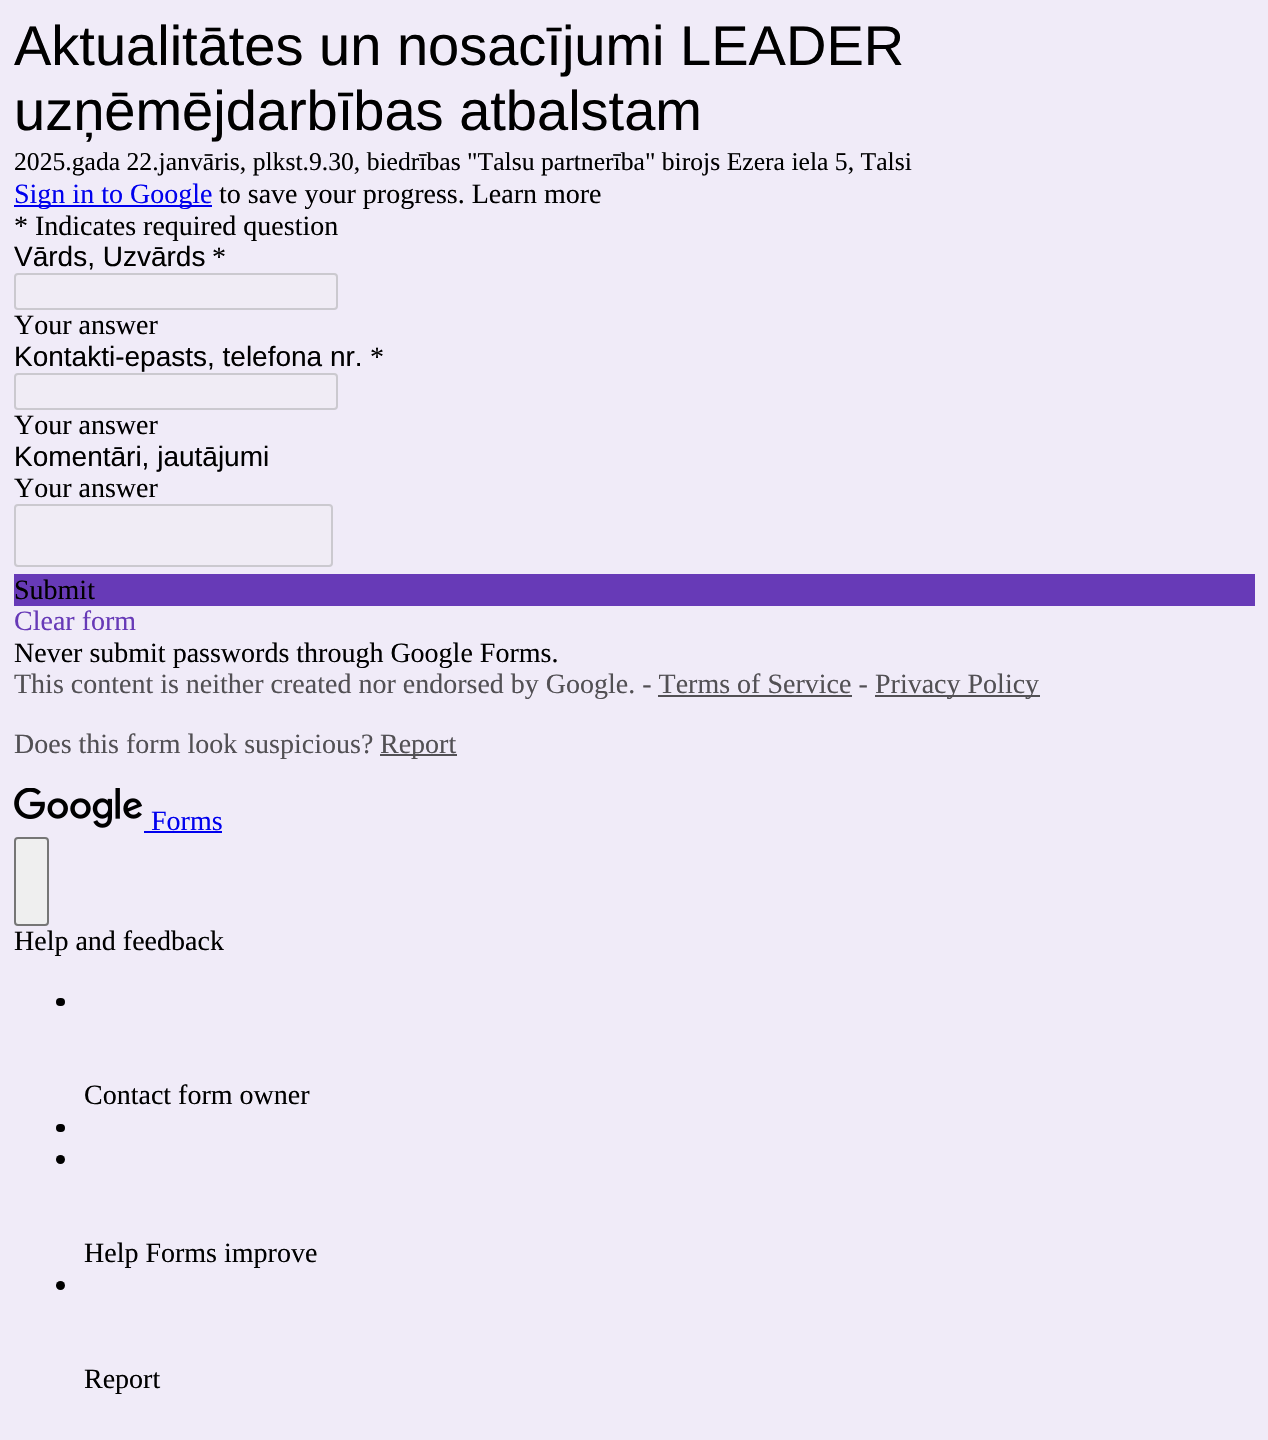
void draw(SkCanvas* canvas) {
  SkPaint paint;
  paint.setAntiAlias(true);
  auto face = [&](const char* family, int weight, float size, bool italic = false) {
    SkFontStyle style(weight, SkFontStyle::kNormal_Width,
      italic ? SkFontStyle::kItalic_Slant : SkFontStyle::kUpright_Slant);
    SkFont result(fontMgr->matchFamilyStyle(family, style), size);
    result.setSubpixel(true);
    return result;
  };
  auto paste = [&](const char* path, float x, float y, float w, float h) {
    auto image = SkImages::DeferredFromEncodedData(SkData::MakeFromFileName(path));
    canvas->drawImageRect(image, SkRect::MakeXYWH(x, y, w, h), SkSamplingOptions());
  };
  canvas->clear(0xfff0ebf8);
  paint.setColor(0xff0000ee);
  canvas->drawRect(SkRect::MakeXYWH(14, 205, 198, 2), paint);
  paint.setColor(0xfff0ecf5);
  canvas->drawRoundRect(SkRect::MakeXYWH(15, 274, 322, 35), 3, 3, paint);
  paint.setStroke(true);
  paint.setStrokeWidth(2);
  paint.setColor(0xffcbc9cf);
  canvas->drawRoundRect(SkRect::MakeXYWH(15, 274, 322, 35), 3, 3, paint);
  paint.setStroke(false);
  paint.setColor(0xfff0ecf5);
  canvas->drawRoundRect(SkRect::MakeXYWH(15, 374, 322, 35), 3, 3, paint);
  paint.setStroke(true);
  paint.setColor(0xffcbc9cf);
  canvas->drawRoundRect(SkRect::MakeXYWH(15, 374, 322, 35), 3, 3, paint);
  paint.setStroke(false);
  paint.setColor(0xfff0ecf5);
  canvas->drawRoundRect(SkRect::MakeXYWH(15, 505, 317, 61), 3, 3, paint);
  paint.setStroke(true);
  paint.setColor(0xffcbc9cf);
  canvas->drawRoundRect(SkRect::MakeXYWH(15, 505, 317, 61), 3, 3, paint);
  paint.setStroke(false);
  {
    const struct { float x, y, w, h; SkColor color; } items[] = {
      {14, 574, 1241, 32, 0xff673ab7},
      {875, 695, 165, 2, 0xff525054},
      {658, 695, 194, 2, 0xff525054},
      {380, 754, 77, 2, 0xff525054},
    };
    for (auto [x, y, w, h, color] : items) {
      paint.setColor(color);
      canvas->drawRect(SkRect::MakeXYWH(x, y, w, h), paint);
    }
  }
  paste("img/1.png", 14, 788, 128, 40);
  paint.setColor(0xff0000ee);
  canvas->drawRect(SkRect::MakeXYWH(144, 831, 78, 2), paint);
  paint.setColor(0xffefefef);
  canvas->drawRoundRect(SkRect::MakeXYWH(15, 838, 33, 87), 3, 3, paint);
  paint.setStroke(true);
  paint.setColor(0xff767676);
  canvas->drawRoundRect(SkRect::MakeXYWH(15, 838, 33, 87), 3, 3, paint);
  paint.setStroke(false);
  paint.setColor(0xff000000);
  canvas->drawRoundRect(SkRect::MakeXYWH(56, 998, 9, 8), 4, 4, paint);
  canvas->drawRoundRect(SkRect::MakeXYWH(56, 1124, 9, 8), 4, 4, paint);
  canvas->drawCircle(60.5f, 1159.5f, 4.5f, paint);
  canvas->drawCircle(60.5f, 1285.5f, 4.5f, paint);
  auto f0 = face("Liberation Sans", 400, 56);
  canvas->drawString("Aktualitātes un nosacījumi LEADER", 14, 65, f0, paint);
  canvas->drawString("uzņēmējdarbības atbalstam", 14, 130, f0, paint);
  auto f1 = face("Liberation Serif", 400, 25.65f);
  canvas->drawString("2025.gada 22.janvāris, plkst.9.30, biedrības \"Talsu partnerība\" birojs Ezera iela 5, Talsi", 14, 170, f1, paint);
  auto f2 = face("Liberation Serif", 400, 28);
  paint.setColor(0xff0000ee);
  canvas->drawString("Sign in to Google", 14, 203, f2, paint);
  paint.setColor(0xff000000);
  canvas->drawString("to save your progress. Learn more", 219, 203, f2, paint);
  canvas->drawString("* Indicates required question", 14, 235, f2, paint);
  auto f3 = face("Liberation Sans", 400, 28);
  canvas->drawString("Vārds, Uzvārds", 14, 266, f3, paint);
  canvas->drawString("*", 212, 266, f2, paint);
  canvas->drawString("Your answer", 14, 334, f2, paint);
  canvas->drawString("Kontakti-epasts, telefona nr.", 14, 366, f3, paint);
  canvas->drawString("*", 370, 366, f2, paint);
  canvas->drawString("Your answer", 14, 434, f2, paint);
  canvas->drawString("Komentāri, jautājumi", 14, 466, f3, paint);
  canvas->drawString("Your answer", 14, 497, f2, paint);
  canvas->drawString("Submit", 14, 599, f2, paint);
  paint.setColor(0xff673ab7);
  canvas->drawString("Clear form", 14, 630, f2, paint);
  paint.setColor(0xff000000);
  canvas->drawString("Never submit passwords through Google Forms.", 14, 662, f2, paint);
  paint.setColor(0xff525054);
  {
    const struct { const char* s; float x, y; } items[] = {
      {"This content is neither created nor endorsed by Google. - Terms of Service -", 14, 693},
      {"Privacy Policy", 875, 693},
      {"Does this form look suspicious?", 14, 753},
      {"Report", 380, 753},
    };
    for (auto [s, x, y] : items) {
      canvas->drawString(s, x, y, f2, paint);
    }
  }
  paint.setColor(0xff0000ee);
  canvas->drawString("Forms", 151, 830, f2, paint);
  paint.setColor(0xff000000);
  {
    const struct { const char* s; float x, y; } items[] = {
      {"Help and feedback", 14, 950},
      {"Contact form owner", 84, 1104},
      {"Help Forms improve", 84, 1262},
      {"Report", 84, 1388},
    };
    for (auto [s, x, y] : items) {
      canvas->drawString(s, x, y, f2, paint);
    }
  }
}
